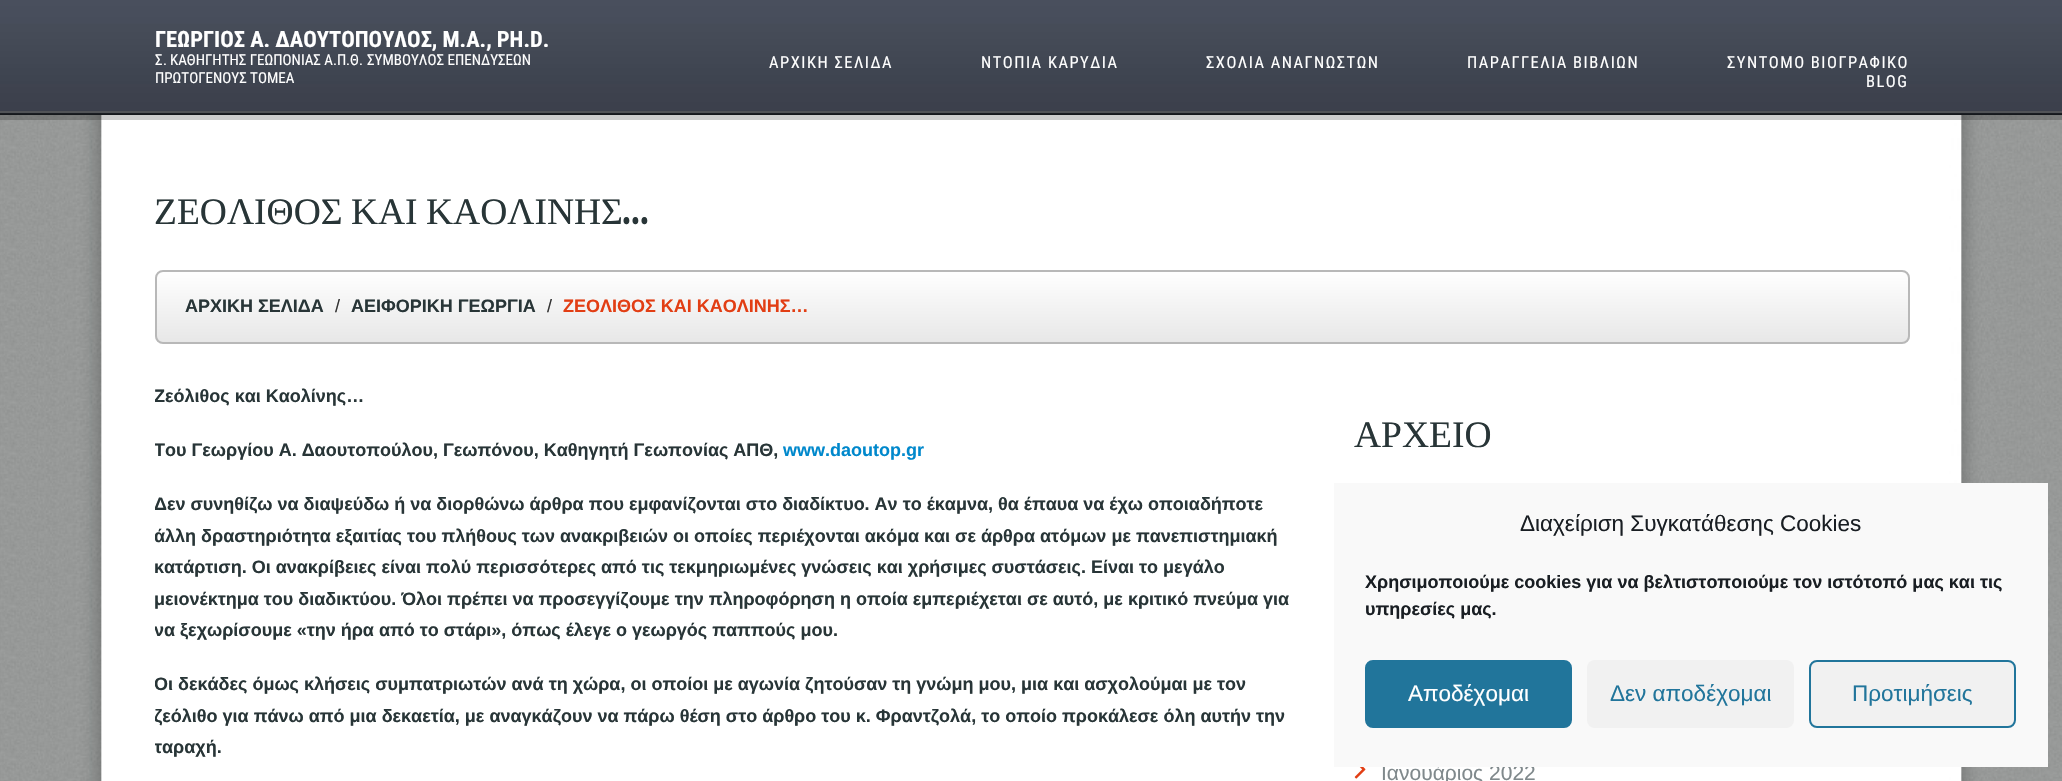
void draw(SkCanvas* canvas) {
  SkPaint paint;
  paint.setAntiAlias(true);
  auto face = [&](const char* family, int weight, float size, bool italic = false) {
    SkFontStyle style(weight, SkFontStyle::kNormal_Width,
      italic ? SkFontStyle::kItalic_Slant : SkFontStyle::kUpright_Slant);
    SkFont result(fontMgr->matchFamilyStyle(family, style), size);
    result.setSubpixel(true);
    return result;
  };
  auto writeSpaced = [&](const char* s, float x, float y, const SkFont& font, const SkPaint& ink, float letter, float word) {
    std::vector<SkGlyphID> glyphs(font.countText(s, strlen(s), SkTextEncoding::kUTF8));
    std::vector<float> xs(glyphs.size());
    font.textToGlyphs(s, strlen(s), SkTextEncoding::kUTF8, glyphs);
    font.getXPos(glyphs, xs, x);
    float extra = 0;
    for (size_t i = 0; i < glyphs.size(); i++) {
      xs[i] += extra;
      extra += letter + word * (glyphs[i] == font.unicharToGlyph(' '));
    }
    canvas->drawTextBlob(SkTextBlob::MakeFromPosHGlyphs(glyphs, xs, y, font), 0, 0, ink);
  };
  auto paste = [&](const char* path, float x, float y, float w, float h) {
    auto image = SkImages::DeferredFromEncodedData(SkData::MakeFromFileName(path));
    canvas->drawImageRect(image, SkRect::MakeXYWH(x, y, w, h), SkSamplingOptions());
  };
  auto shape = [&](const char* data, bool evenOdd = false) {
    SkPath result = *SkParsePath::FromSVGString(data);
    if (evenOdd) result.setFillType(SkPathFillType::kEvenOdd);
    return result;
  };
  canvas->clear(0xffffffff);
  paste("img/1.png", 0, 115, 2062, 666);
  paste("img/2.png", 0, 0, 2062, 111);
  {
    const struct { float x, y, w, h; SkColor color; } items[] = {
      {0, 111, 2062, 2, 0xff515357},
      {0, 113, 2062, 2, 0xff1a1d22},
      {0, 114, 2062, 6, 0x33000000},
    };
    for (auto [x, y, w, h, color] : items) {
      paint.setColor(color);
      canvas->drawRect(SkRect::MakeXYWH(x, y, w, h), paint);
    }
  }
  canvas->save();
  canvas->clipPath(shape("M163 270H1902C1906.5 270 1910 273.5 1910 278V336C1910 340.5 1906.5 344 1902 344H163C158.5 344 155 340.5 155 336V278C155 273.5 158.5 270 163 270Z"), true);
  {
    const SkColor colors[] = {0xffffffff, 0xffe7e7e7};
    const float stops[] = {0, 1};
    const SkPoint ends[] = {{1032, 271}, {1032, 342}};
    paint.setShader(SkGradientShader::MakeLinear(ends, colors, stops, 2, SkTileMode::kClamp));
    paint.setAlpha(255);
  }
  canvas->drawRect(SkRect::MakeXYWH(155, 272, 1755, 70), paint);
  canvas->restore();
  paint.setStroke(true);
  paint.setStrokeWidth(2);
  paint.setShader(nullptr);
  paint.setColor(0xffb8b8b8);
  canvas->drawRoundRect(SkRect::MakeXYWH(156, 271, 1753, 72), 7, 7, paint);
  paste("img/3.png", 1354, 767, 12, 12);
  auto f0 = face("Roboto Condensed", 700, 22.5f);
  paint.setStroke(false);
  paint.setColor(0xffffffff);
  canvas->drawString("ΓΕΩΡΓΙΟΣ Α. ΔΑΟΥΤΟΠΟΥΛΟΣ, M.A., PH.D.", 155, 47, f0, paint);
  auto f1 = face("Roboto Condensed", 400, 15);
  canvas->drawString("Σ", 155, 65, f1, paint);
  auto f2 = face("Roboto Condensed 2", 400, 15);
  canvas->drawString(".", 163, 65, f2, paint);
  canvas->drawString("ΚΑΘΗΓΗΤΗΣ ΓΕΩΠΟΝΙΑΣ Α", 170, 65, f1, paint);
  canvas->drawString(".", 333, 65, f2, paint);
  canvas->drawString("Π", 337, 65, f1, paint);
  canvas->drawString(".", 346, 65, f2, paint);
  canvas->drawString("Θ", 350, 65, f1, paint);
  canvas->drawString(".", 359, 65, f2, paint);
  canvas->drawString("ΣΥΜΒΟΥΛΟΣ ΕΠΕΝΔΥΣΕΩΝ", 367, 65, f1, paint);
  canvas->drawString("ΠΡΩΤΟΓΕΝΟΥΣ ΤΟΜΕΑ", 155, 83, f1, paint);
  auto f3 = face("Roboto Condensed", 400, 16.5f);
  {
    const struct { const char* s; float x, y; } items[] = {
      {"ΑΡΧΙΚΗ ΣΕΛΙΔΑ", 769, 68},
      {"ΝΤΟΠΙΑ ΚΑΡΥΔΙΑ", 981, 68},
      {"ΣΧΟΛΙΑ ΑΝΑΓΝΩΣΤΩΝ", 1206, 68},
      {"ΠΑΡΑΓΓΕΛΙΑ ΒΙΒΛΙΩΝ", 1467, 68},
      {"ΣΥΝΤΟΜΟ ΒΙΟΓΡΑΦΙΚΟ", 1727, 68},
    };
    for (auto [s, x, y] : items) {
      writeSpaced(s, x, y, f3, paint, 1.5f, 0);
    }
  }
  auto f4 = face("Roboto Condensed 2", 400, 16.5f);
  writeSpaced("BLOG", 1866, 87, f4, paint, 1.5f, 0);
  auto f5 = face("Liberation Serif", 400, 37.5f);
  paint.setColor(0xff283537);
  writeSpaced("ΖΕΟΛΙΘΟΣ ΚΑΙ ΚΑΟΛΙΝΗΣ", 154, 224, f5, paint, 0, -1);
  auto f6 = face("Fjalla One", 400, 37.5f);
  canvas->drawString("…", 622, 224, f6, paint);
  auto f7 = face("Liberation Sans", 700, 18);
  canvas->drawString("ΑΡΧΙΚΗ ΣΕΛΙΔΑ", 185, 312, f7, paint);
  auto f8 = face("Liberation Sans", 400, 18);
  paint.setColor(0xff333333);
  canvas->drawString("/", 335, 312, f8, paint);
  paint.setColor(0xff283537);
  canvas->drawString("ΑΕΙΦΟΡΙΚΗ ΓΕΩΡΓΙΑ", 351, 312, f7, paint);
  paint.setColor(0xff333333);
  canvas->drawString("/", 547, 312, f8, paint);
  paint.setColor(0xffe23e14);
  canvas->drawString("ΖΕΟΛΙΘΟΣ ΚΑΙ ΚΑΟΛΙΝΗΣ…", 563, 312, f7, paint);
  canvas->save();
  canvas->clipRect(SkRect::MakeXYWH(155, 381, 1155, 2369));
  paint.setColor(0xff283537);
  canvas->drawString("Ζεόλιθος και Καολίνης…", 154, 402, f7, paint);
  canvas->drawString("Του Γεωργίου Α. Δαουτοπούλου, Γεωπόνου, Καθηγητή Γεωπονίας ΑΠΘ,", 154, 456, f7, paint);
  canvas->restore();
  paint.setColor(0xff0088cc);
  canvas->drawString("www.daoutop.gr", 783, 456, f7, paint);
  canvas->save();
  canvas->clipRect(SkRect::MakeXYWH(155, 381, 1155, 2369));
  paint.setColor(0xff283537);
  canvas->drawString("Δεν συνηθίζω να διαψεύδω ή να διορθώνω άρθρα που εμφανίζονται στο διαδίκτυο. Αν το έκαμνα, θα έπαυα να έχω οποιαδήποτε", 154, 510, f7, paint);
  canvas->drawString("άλλη δραστηριότητα εξαιτίας του πλήθους των ανακριβειών οι οποίες περιέχονται ακόμα και σε άρθρα ατόμων με πανεπιστημιακή", 154, 542, f7, paint);
  canvas->restore();
  canvas->drawString("κατάρτιση. Οι ανακρίβειες είναι πολύ περισσότερες από τις τεκμηριωμένες γνώσεις και χρήσιμες συστάσεις. Είναι το μεγάλο", 154, 573, f7, paint);
  canvas->drawString("μειονέκτημα του διαδικτύου. Όλοι πρέπει να προσεγγίζουμε την πληροφόρηση η οποία εμπεριέχεται σε αυτό, με κριτικό πνεύμα για", 154, 605, f7, paint);
  canvas->save();
  canvas->clipRect(SkRect::MakeXYWH(155, 381, 1155, 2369));
  {
    const struct { const char* s; float x, y; } items[] = {
      {"να ξεχωρίσουμε «την ήρα από το στάρι», όπως έλεγε ο γεωργός παππούς μου.", 154, 636},
      {"Οι δεκάδες όμως κλήσεις συμπατριωτών ανά τη χώρα, οι οποίοι με αγωνία ζητούσαν τη γνώμη μου, μια και ασχολούμαι με τον", 154, 690},
      {"ζεόλιθο για πάνω από μια δεκαετία, με αναγκάζουν να πάρω θέση στο άρθρο του κ. Φραντζολά, το οποίο προκάλεσε όλη αυτήν την", 154, 722},
      {"ταραχή.", 154, 753},
    };
    for (auto [s, x, y] : items) {
      canvas->drawString(s, x, y, f7, paint);
    }
  }
  canvas->restore();
  canvas->drawString("ΑΡΧΕΙΟ", 1354, 447, f5, paint);
  auto f9 = face("Liberation Sans", 400, 21);
  paint.setColor(0xff80898c);
  canvas->drawString("Ιανουάριος 2022", 1381, 780, f9, paint);
  paint.setColor(0xfff9f9f9);
  canvas->drawRect(SkRect::MakeXYWH(1334, 483, 714, 284), paint);
  auto f10 = face("Liberation Sans", 400, 22.5f);
  paint.setColor(0xff191e23);
  canvas->drawString("Διαχείριση Συγκατάθεσης Cookies", 1520, 531, f10, paint);
  canvas->drawString("Χρησιμοποιούμε cookies για να βελτιστοποιούμε τον ιστότοπό μας και τις", 1365, 588, f7, paint);
  canvas->drawString("υπηρεσίες μας.", 1365, 615, f7, paint);
  paint.setColor(0xff21759b);
  canvas->drawRoundRect(SkRect::MakeXYWH(1366, 661, 205, 66), 7, 7, paint);
  paint.setStroke(true);
  canvas->drawRoundRect(SkRect::MakeXYWH(1366, 661, 205, 66), 7, 7, paint);
  paint.setStroke(false);
  paint.setColor(0xffffffff);
  canvas->drawString("Αποδέχομαι", 1408, 701, f10, paint);
  paint.setColor(0xfff1f1f1);
  canvas->drawRoundRect(SkRect::MakeXYWH(1587, 660, 207, 68), 8, 8, paint);
  paint.setColor(0xff21759b);
  canvas->drawString("Δεν αποδέχομαι", 1610, 701, f10, paint);
  paint.setColor(0xfff1f1f1);
  canvas->drawRoundRect(SkRect::MakeXYWH(1810, 661, 205, 66), 7, 7, paint);
  paint.setStroke(true);
  paint.setColor(0xff21759b);
  canvas->drawRoundRect(SkRect::MakeXYWH(1810, 661, 205, 66), 7, 7, paint);
  paint.setStroke(false);
  canvas->drawString("Προτιμήσεις", 1852, 701, f10, paint);
}
